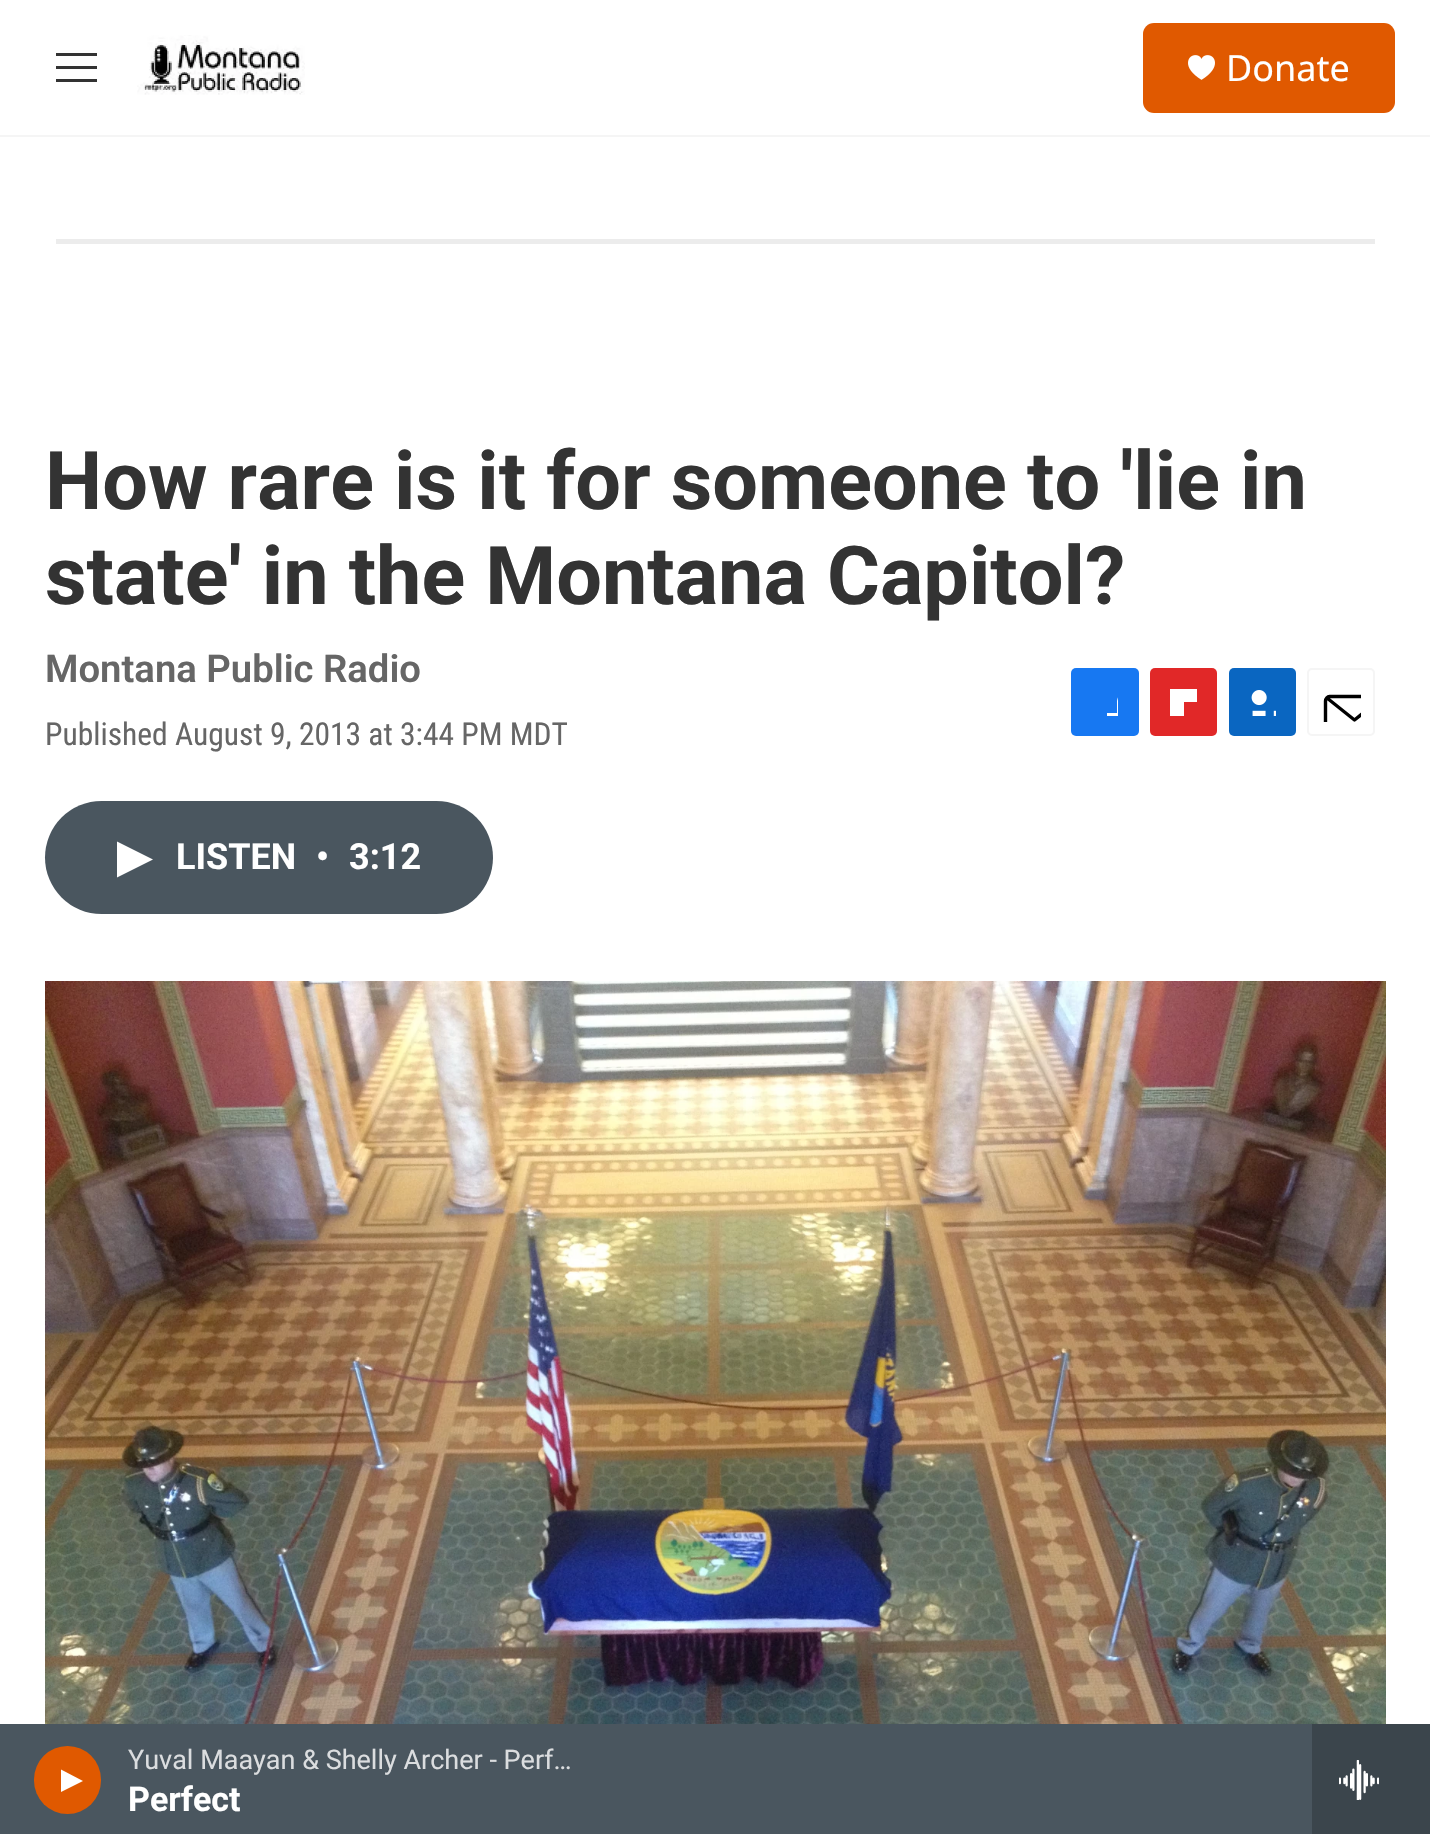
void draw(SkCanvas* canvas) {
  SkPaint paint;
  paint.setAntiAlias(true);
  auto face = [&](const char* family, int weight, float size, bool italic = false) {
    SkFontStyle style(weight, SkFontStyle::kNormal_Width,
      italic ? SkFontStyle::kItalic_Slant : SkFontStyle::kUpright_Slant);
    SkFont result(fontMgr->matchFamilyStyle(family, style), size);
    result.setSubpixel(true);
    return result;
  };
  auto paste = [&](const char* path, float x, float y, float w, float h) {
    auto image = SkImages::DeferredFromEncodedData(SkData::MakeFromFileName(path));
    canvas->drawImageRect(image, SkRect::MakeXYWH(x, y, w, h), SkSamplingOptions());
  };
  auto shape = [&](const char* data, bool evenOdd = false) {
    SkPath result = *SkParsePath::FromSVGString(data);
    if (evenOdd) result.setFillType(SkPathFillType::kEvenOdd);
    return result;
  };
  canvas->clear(0xffffffff);
  paint.setColor(0xfff5f5f5);
  canvas->drawRect(SkRect::MakeXYWH(0, 135, 1430, 2), paint);
  paint.setColor(0xff333333);
  canvas->drawPath(shape("M56 69V66H97V69ZM56 56V53H97V56ZM56 82V79H97V82Z", true), paint);
  paste("img/1.png", 137, 35, 168, 60);
  paint.setColor(0xffe05900);
  canvas->drawRoundRect(SkRect::MakeXYWH(1143, 23, 252, 90), 11, 11, paint);
  paste("img/2.png", 1188, 55, 27, 25);
  paint.setColor(0xff4a565f);
  canvas->drawRect(SkRect::MakeXYWH(0, 1724, 1312, 110), paint);
  paint.setColor(0xffe05900);
  canvas->drawRoundRect(SkRect::MakeXYWH(34, 1746, 67, 68), 33.5f, 33.5f, paint);
  paint.setColor(0xffffffff);
  canvas->drawPath(shape("M61 1769.5L83 1781L61 1792Z"), paint);
  paint.setColor(0xff3b454c);
  canvas->drawRect(SkRect::MakeXYWH(1312, 1724, 118, 110), paint);
  paste("img/3.png", 1339, 1760, 40, 40);
  paint.setColor(0xffececec);
  canvas->drawRect(SkRect::MakeXYWH(56, 239, 1319, 5), paint);
  paint.setColor(0xff1778f2);
  canvas->drawRoundRect(SkRect::MakeXYWH(1071, 668, 68, 68), 5, 5, paint);
  canvas->save();
  canvas->clipRect(SkRect::MakeXYWH(1091, 689, 27, 27));
  paint.setColor(0xffffffff);
  canvas->drawPath(shape("M1129 736H1117V725H1107V713H1117V701C1119 689 1130 688 1139 690V700C1127 700 1129 703 1129 713H1139L1138 725H1129Z"), paint);
  canvas->restore();
  paint.setColor(0xffe12828);
  canvas->drawRoundRect(SkRect::MakeXYWH(1150, 668, 67, 68), 5, 5, paint);
  canvas->save();
  canvas->clipRect(SkRect::MakeXYWH(1170, 689, 27, 27));
  paint.setColor(0xffffffff);
  canvas->drawPath(shape("M1170 688V736H1184V702H1217V688ZM1217 716H1210V729H1197V736C1219 736 1217 738 1217 716Z", true), paint);
  canvas->restore();
  paint.setColor(0xff0a66c1);
  canvas->drawRoundRect(SkRect::MakeXYWH(1229, 668, 67, 68), 5, 5, paint);
  paste("img/4.png", 1251, 690, 25, 26);
  paint.setStroke(true);
  paint.setStrokeWidth(2);
  paint.setColor(0xfff5f5f5);
  canvas->drawRoundRect(SkRect::MakeXYWH(1308, 669, 66, 66), 4, 4, paint);
  canvas->save();
  canvas->clipRect(SkRect::MakeXYWH(1321, 682, 40, 40));
  paint.setStrokeWidth(3.4f);
  paint.setStrokeCap(SkPaint::kRound_Cap);
  paint.setStrokeJoin(SkPaint::kRound_Join);
  paint.setColor(0xff000000);
  canvas->drawPath(shape("M1383.5 731C1383.5 733.5 1381.5 735.5 1379.5 735.5H1329.5C1327.5 735.5 1325.5 733.5 1325.5 731V701C1325.5 698.5 1327.5 696.5 1329.5 696.5H1379.5C1381.5 696.5 1383.5 698.5 1383.5 701ZM1382 698L1354.5 720L1327 698"), paint);
  canvas->restore();
  paint.setStroke(false);
  paint.setColor(0xff4a565f);
  canvas->drawRoundRect(SkRect::MakeXYWH(45, 801, 448, 113), 56.5f, 56.5f, paint);
  paint.setColor(0xffffffff);
  canvas->drawPath(shape("M117 841.5L153 859.5L117 877.5Z"), paint);
  paste("img/5.png", 45, 981, 1341, 743);
  auto f0 = face("Noto Sans", 400, 36);
  canvas->drawString("Donate", 1226, 81, f0, paint);
  auto f1 = face("Roboto", 400, 27);
  paint.setColor(0xffdbdddf);
  canvas->drawString("Yuval Maayan & Shelly Archer - Perf…", 128, 1769, f1, paint);
  auto f2 = face("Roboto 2", 700, 34);
  paint.setColor(0xffffffff);
  canvas->drawString("Perfect", 128, 1811, f2, paint);
  auto f3 = face("Roboto", 700, 81);
  paint.setColor(0xff333333);
  canvas->drawString("How rare is it for someone to 'lie in", 45, 509, f3, paint);
  canvas->drawString("state' in the Montana Capitol?", 45, 604, f3, paint);
  auto f4 = face("Roboto", 600, 38.25f);
  paint.setColor(0xff666666);
  canvas->drawString("Montana Public Radio", 45, 682, f4, paint);
  auto f5 = face("Roboto Condensed", 400, 31.5f);
  canvas->drawString("Published August 9, 2013 at 3:44 PM MDT", 45, 745, f5, paint);
  auto f6 = face("Roboto 2", 700, 36);
  paint.setColor(0xffffffff);
  {
    const struct { const char* s; float x, y; } items[] = {
      {"LISTEN", 176, 869},
      {"•", 316, 869},
      {"3:12", 349, 869},
    };
    for (auto [s, x, y] : items) {
      canvas->drawString(s, x, y, f6, paint);
    }
  }
}
